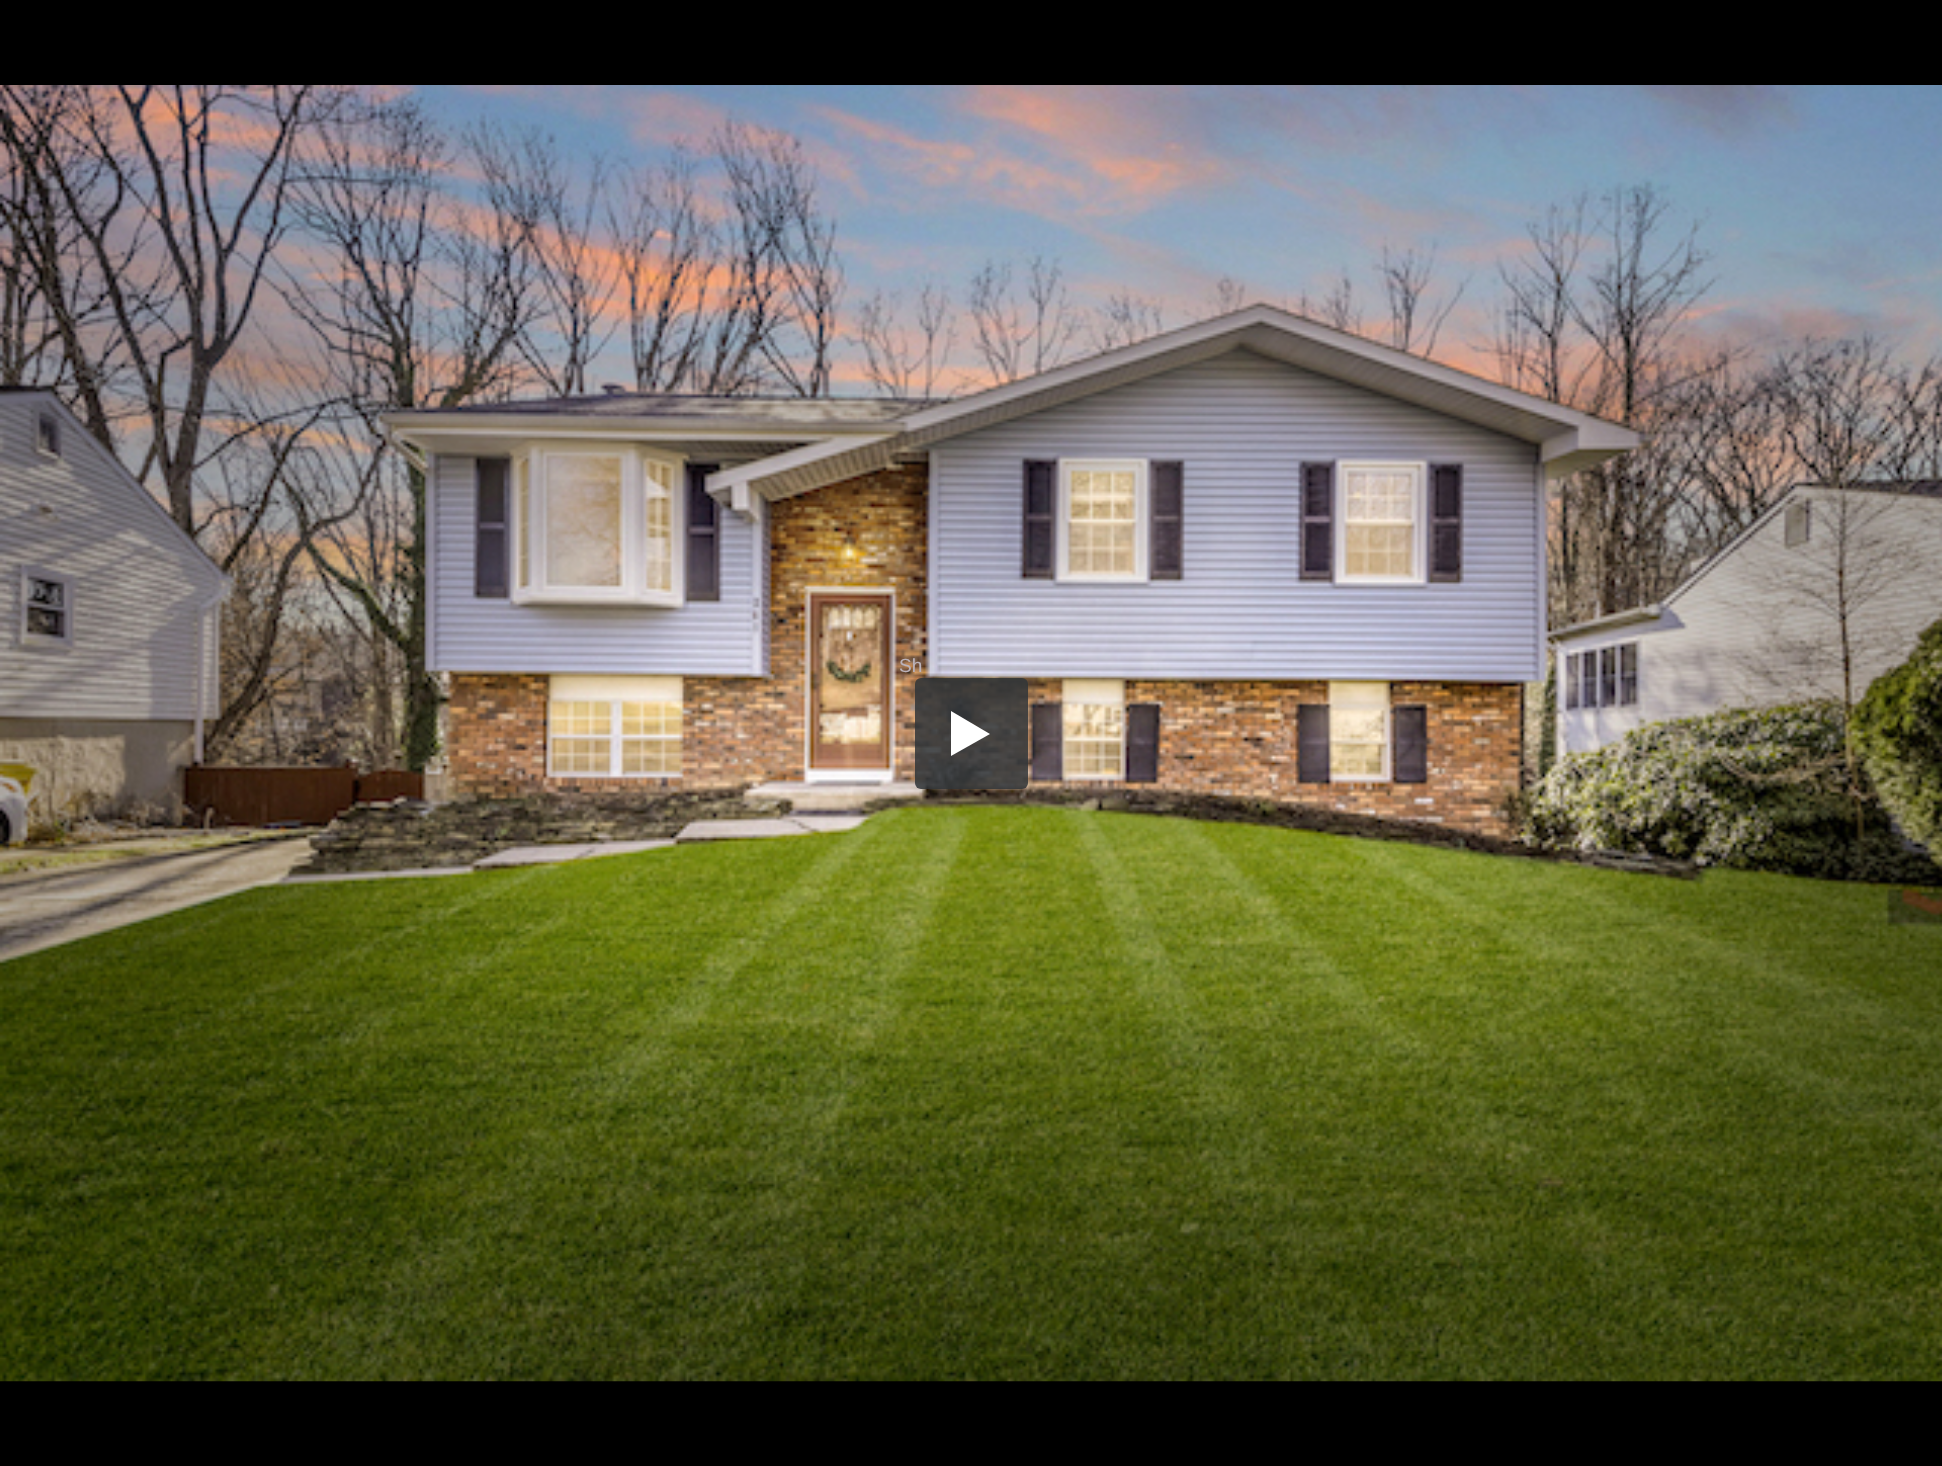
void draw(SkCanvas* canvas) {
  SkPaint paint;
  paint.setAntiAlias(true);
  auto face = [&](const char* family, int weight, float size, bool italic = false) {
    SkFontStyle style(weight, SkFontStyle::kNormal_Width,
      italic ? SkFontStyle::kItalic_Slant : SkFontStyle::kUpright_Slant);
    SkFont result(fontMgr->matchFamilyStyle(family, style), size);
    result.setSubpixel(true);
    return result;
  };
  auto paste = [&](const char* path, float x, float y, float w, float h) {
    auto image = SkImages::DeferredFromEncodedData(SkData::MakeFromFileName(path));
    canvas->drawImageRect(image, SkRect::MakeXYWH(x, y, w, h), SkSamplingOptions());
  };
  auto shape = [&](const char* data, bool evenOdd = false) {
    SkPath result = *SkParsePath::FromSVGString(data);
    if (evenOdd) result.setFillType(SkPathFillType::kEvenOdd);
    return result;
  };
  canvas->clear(0xff000000);
  paste("img/1.png", 0, 85, 1942, 1297);
  paint.setColor(0xd92f3437);
  canvas->drawRoundRect(SkRect::MakeXYWH(915, 678, 113, 111), 6, 6, paint);
  paint.setColor(0xffffffff);
  canvas->drawPath(shape("M951 711V756L990 734Z"), paint);
  auto f0 = face("Liberation Sans", 400, 19);
  paint.setColor(0xffbbb2b9);
  canvas->drawString("Sh", 899, 672, f0, paint);
}
